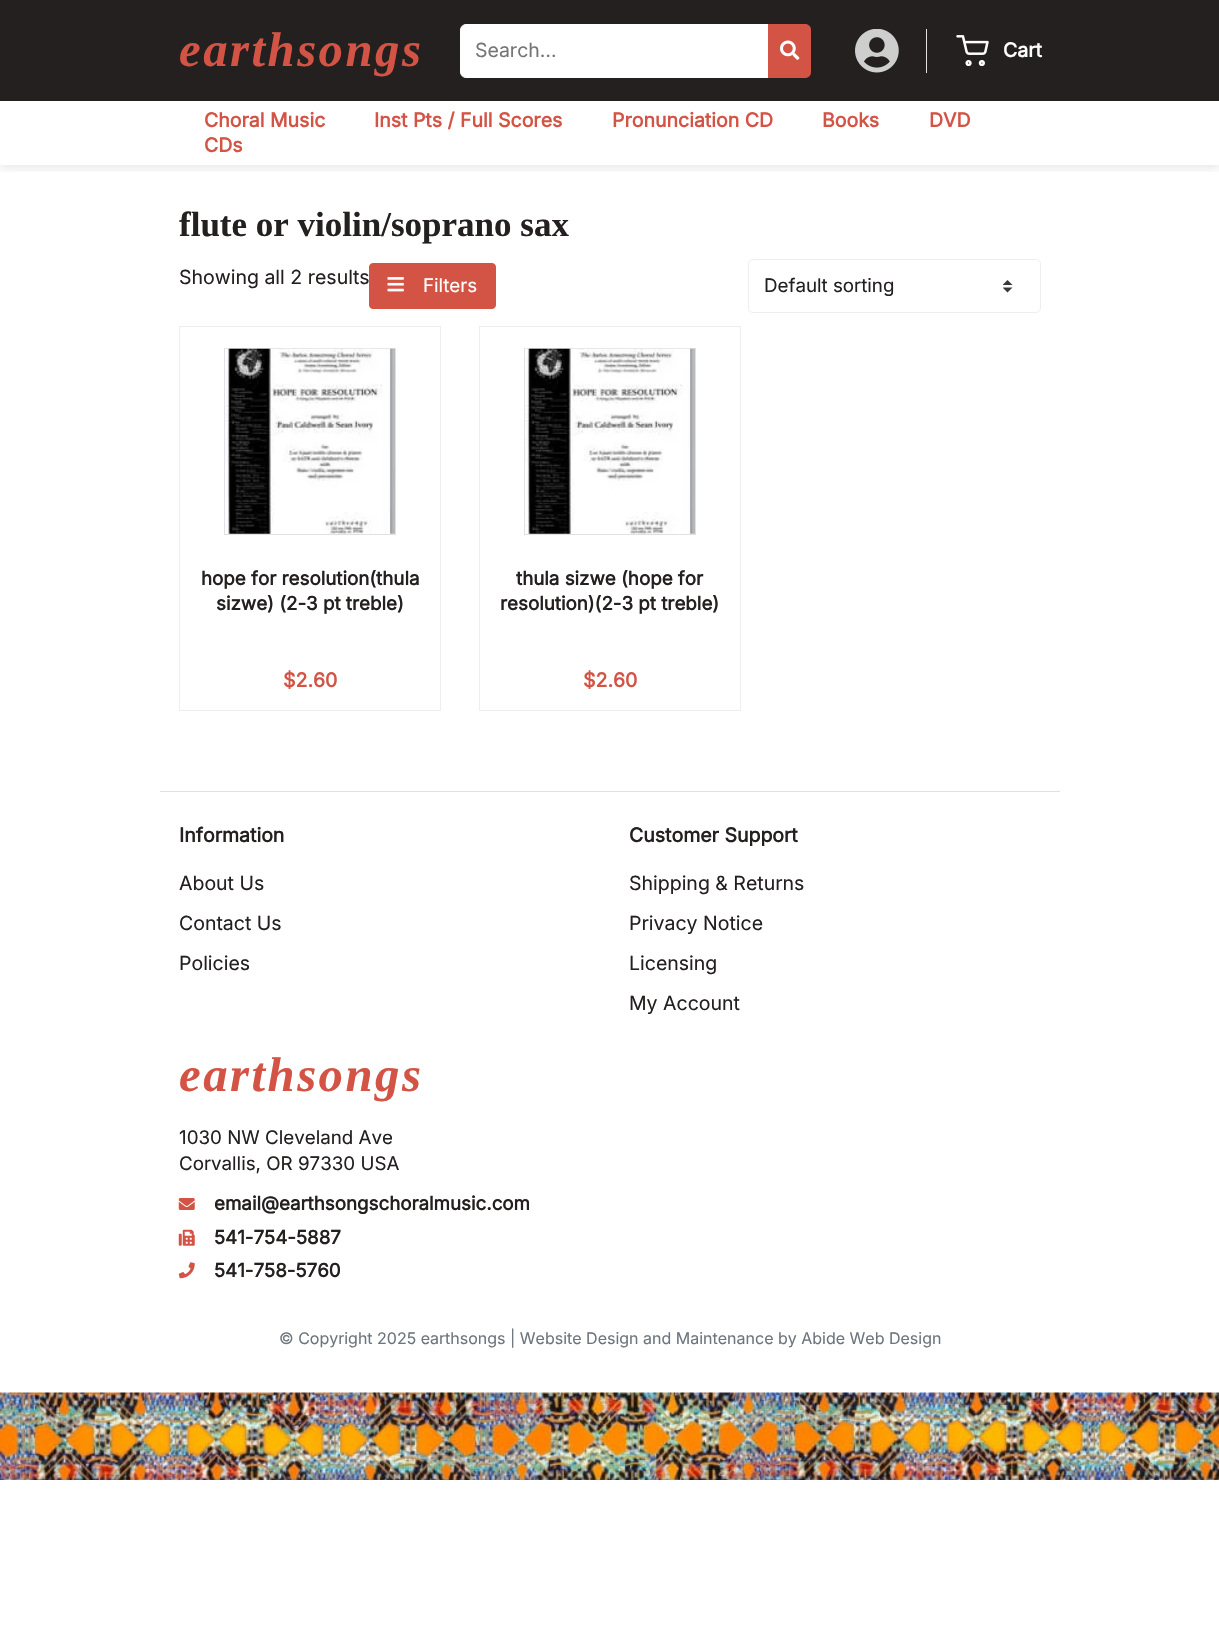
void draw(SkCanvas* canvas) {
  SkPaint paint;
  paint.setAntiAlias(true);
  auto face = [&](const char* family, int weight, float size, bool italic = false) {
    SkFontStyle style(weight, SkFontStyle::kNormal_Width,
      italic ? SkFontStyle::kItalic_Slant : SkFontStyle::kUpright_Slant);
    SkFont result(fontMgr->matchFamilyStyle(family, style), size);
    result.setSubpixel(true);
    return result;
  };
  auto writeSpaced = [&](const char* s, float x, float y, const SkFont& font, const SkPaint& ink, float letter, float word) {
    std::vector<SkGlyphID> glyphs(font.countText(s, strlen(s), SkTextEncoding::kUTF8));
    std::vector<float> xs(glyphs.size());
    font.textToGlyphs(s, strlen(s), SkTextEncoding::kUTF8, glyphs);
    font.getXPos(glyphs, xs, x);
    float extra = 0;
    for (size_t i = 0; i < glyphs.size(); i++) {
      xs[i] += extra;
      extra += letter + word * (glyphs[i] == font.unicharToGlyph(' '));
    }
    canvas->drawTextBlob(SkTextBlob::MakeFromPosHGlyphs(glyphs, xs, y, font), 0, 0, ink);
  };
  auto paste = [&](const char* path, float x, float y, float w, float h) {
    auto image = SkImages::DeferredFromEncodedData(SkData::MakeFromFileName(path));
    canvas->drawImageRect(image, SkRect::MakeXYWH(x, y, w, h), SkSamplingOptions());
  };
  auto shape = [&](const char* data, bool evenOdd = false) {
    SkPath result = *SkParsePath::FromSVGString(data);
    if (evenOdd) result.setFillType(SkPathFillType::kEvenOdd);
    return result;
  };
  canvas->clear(0xffffffff);
  paint.setColor(0xff24201f);
  canvas->drawRect(SkRect::MakeXYWH(0, 0, 1219, 101), paint);
  paint.setColor(0xffffffff);
  canvas->drawPath(shape("M466 24.5H768.5V77.5H466C463 77.5 460.5 75 460.5 72V30C460.5 27 463 24.5 466 24.5Z"), paint);
  paint.setStroke(true);
  paint.setStrokeWidth(1);
  canvas->drawPath(shape("M466 24.5H768.5V77.5H466C463 77.5 460.5 75 460.5 72V30C460.5 27 463 24.5 466 24.5Z"), paint);
  paint.setStroke(false);
  paint.setColor(0xffd35345);
  canvas->drawPath(shape("M768 24H805C808.5 24 811 26.5 811 30V72C811 75.5 808.5 78 805 78H768Z"), paint);
  paste("img/1.png", 780, 40, 20, 20);
  paint.setColor(0xffdee2e6);
  canvas->drawRect(SkRect::MakeXYWH(926, 29, 1, 44), paint);
  paste("img/2.png", 855, 29, 44, 44);
  paste("img/3.png", 956, 35, 33, 31);
  canvas->save();
  canvas->clipRect(SkRect::MakeXYWH(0, 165, 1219, 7));
  paint.setColor(0x14000000);
  paint.setMaskFilter(SkMaskFilter::MakeBlur(kNormal_SkBlurStyle, 4));
  canvas->drawRect(SkRect::MakeXYWH(0, 105, 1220, 64), paint);
  paint.setMaskFilter(nullptr);
  canvas->restore();
  paint.setColor(0xffd35345);
  canvas->drawRoundRect(SkRect::MakeXYWH(369.5f, 263.5f, 126, 45), 3.5f, 3.5f, paint);
  paint.setStroke(true);
  canvas->drawRoundRect(SkRect::MakeXYWH(369.5f, 263.5f, 126, 45), 3.5f, 3.5f, paint);
  paste("img/4.png", 387, 277, 17, 15);
  paste("img/5.png", 1003, 280, 10, 13);
  paint.setColor(0xffeeeeee);
  canvas->drawRoundRect(SkRect::MakeXYWH(748.5f, 259.5f, 292, 53), 4.5f, 4.5f, paint);
  canvas->drawRect(SkRect::MakeXYWH(179.5f, 326.5f, 261, 384), paint);
  paint.setColor(0xffdee2e6);
  canvas->drawRect(SkRect::MakeXYWH(224.5f, 348.5f, 171, 186), paint);
  paste("img/6.png", 225, 348, 170, 186);
  paint.setColor(0xffeeeeee);
  canvas->drawRect(SkRect::MakeXYWH(479.5f, 326.5f, 261, 384), paint);
  paint.setColor(0xffdee2e6);
  canvas->drawRect(SkRect::MakeXYWH(524.5f, 348.5f, 171, 186), paint);
  paste("img/7.png", 525, 348, 170, 186);
  paint.setStroke(false);
  canvas->drawRect(SkRect::MakeXYWH(160, 791, 900, 1), paint);
  paste("img/8.png", 178, 1198, 17, 12);
  paste("img/9.png", 178, 1229, 17, 17);
  paste("img/10.png", 178, 1262, 17, 17);
  paste("img/11.png", 0, 1392, 1219, 88);
  auto f0 = face("Liberation Serif", 700, 48.75f, true);
  paint.setColor(0xffd35345);
  writeSpaced("earthsongs", 179, 66, f0, paint, 2.5f, 0);
  auto f1 = face("Inter", 400, 19.5f);
  paint.setColor(0xff757575);
  canvas->drawString("Search…", 475, 57, f1, paint);
  auto f2 = face("Inter", 700, 19.5f);
  paint.setColor(0xffffffff);
  canvas->drawString("Cart", 1003, 57, f2, paint);
  paint.setColor(0xffd35345);
  {
    const struct { const char* s; float x, y; } items[] = {
      {"Choral Music", 204, 127},
      {"Inst Pts / Full Scores", 374, 127},
      {"Pronunciation CD", 612, 127},
      {"Books", 822, 127},
      {"DVD", 929, 127},
      {"CDs", 204, 152},
    };
    for (auto [s, x, y] : items) {
      canvas->drawString(s, x, y, f2, paint);
    }
  }
  auto f3 = face("Liberation Serif", 700, 35);
  paint.setColor(0xff24201f);
  canvas->drawString("flute or violin/soprano sax", 179, 236, f3, paint);
  canvas->drawString("Showing all 2 results", 179, 284, f1, paint);
  auto f4 = face("Inter", 400, 18.75f);
  paint.setColor(0xffffffff);
  canvas->drawString("Filters", 423, 292, f4, paint);
  paint.setColor(0xff24201f);
  canvas->drawString("Default sorting", 764, 292, f4, paint);
  auto f5 = face("Inter", 700, 18.75f);
  canvas->drawString("hope for resolution(thula", 201, 585, f5, paint);
  canvas->drawString("sizwe) (2-3 pt treble)", 216, 610, f5, paint);
  paint.setColor(0xffd35345);
  canvas->drawString("$2.60", 283, 687, f2, paint);
  paint.setColor(0xff24201f);
  canvas->drawString("thula sizwe (hope for", 516, 585, f5, paint);
  canvas->drawString("resolution)(2-3 pt treble)", 500, 610, f5, paint);
  paint.setColor(0xffd35345);
  canvas->drawString("$2.60", 583, 687, f2, paint);
  paint.setColor(0xff24201f);
  canvas->drawString("Information", 179, 842, f2, paint);
  {
    const struct { const char* s; float x, y; } items[] = {
      {"About Us", 179, 890},
      {"Contact Us", 179, 930},
      {"Policies", 179, 970},
    };
    for (auto [s, x, y] : items) {
      canvas->drawString(s, x, y, f1, paint);
    }
  }
  canvas->drawString("Customer Support", 629, 842, f2, paint);
  {
    const struct { const char* s; float x, y; } items[] = {
      {"Shipping & Returns", 629, 890},
      {"Privacy Notice", 629, 930},
      {"Licensing", 629, 970},
      {"My Account", 629, 1010},
    };
    for (auto [s, x, y] : items) {
      canvas->drawString(s, x, y, f1, paint);
    }
  }
  paint.setColor(0xffd35345);
  writeSpaced("earthsongs", 179, 1091, f0, paint, 2.5f, 0);
  paint.setColor(0xff24201f);
  canvas->drawString("1030 NW Cleveland Ave", 179, 1144, f4, paint);
  canvas->drawString("Corvallis, OR 97330 USA", 179, 1170, f4, paint);
  {
    const struct { const char* s; float x, y; } items[] = {
      {"email@earthsongschoralmusic.com", 214, 1210},
      {"541-754-5887", 214, 1244},
      {"541-758-5760", 214, 1277},
    };
    for (auto [s, x, y] : items) {
      canvas->drawString(s, x, y, f5, paint);
    }
  }
  auto f6 = face("Inter", 400, 16);
  paint.setColor(0xff6c757d);
  canvas->drawString("© Copyright 2025 earthsongs | Website Design and Maintenance by Abide Web Design", 279, 1344, f6, paint);
}
